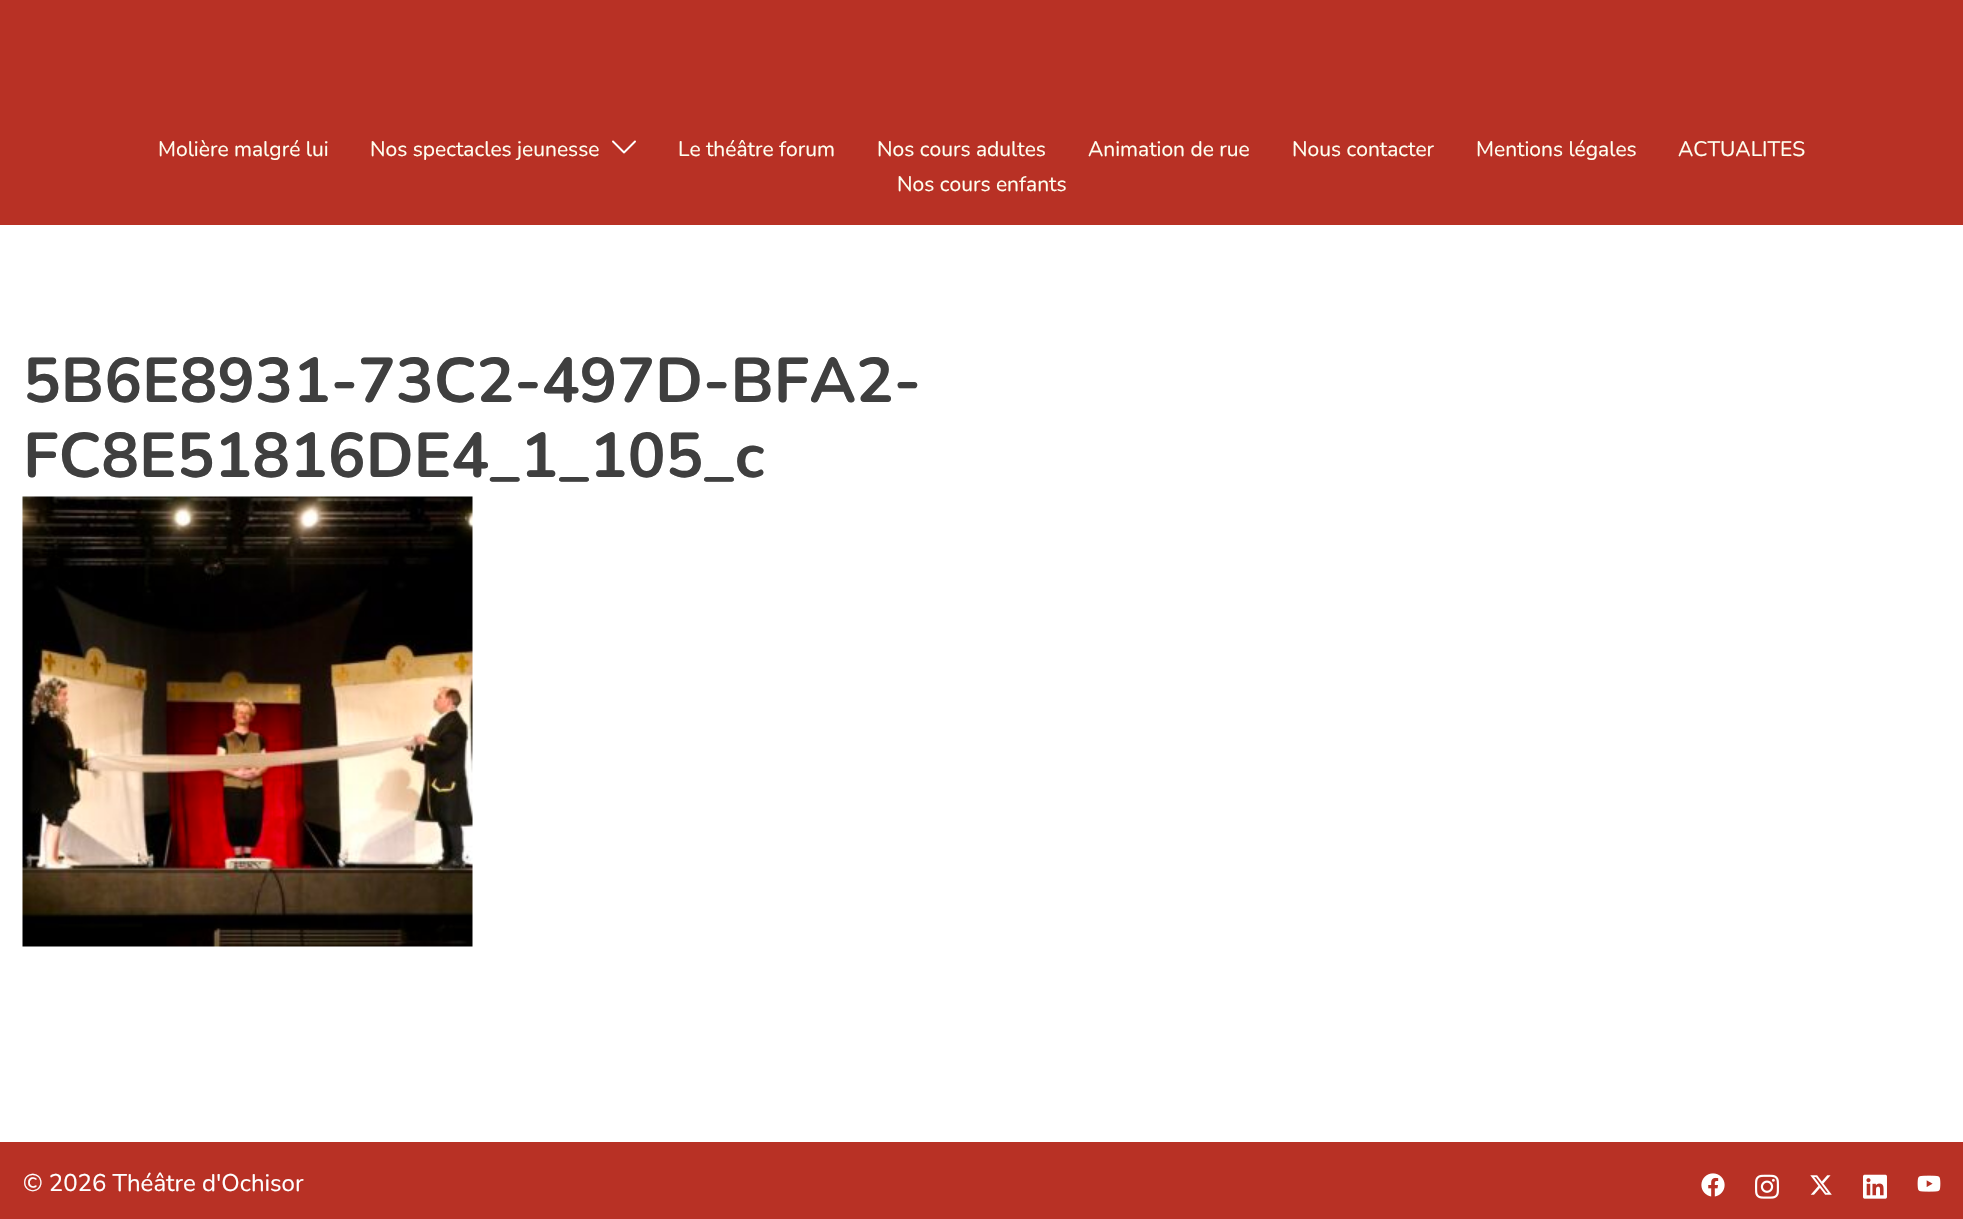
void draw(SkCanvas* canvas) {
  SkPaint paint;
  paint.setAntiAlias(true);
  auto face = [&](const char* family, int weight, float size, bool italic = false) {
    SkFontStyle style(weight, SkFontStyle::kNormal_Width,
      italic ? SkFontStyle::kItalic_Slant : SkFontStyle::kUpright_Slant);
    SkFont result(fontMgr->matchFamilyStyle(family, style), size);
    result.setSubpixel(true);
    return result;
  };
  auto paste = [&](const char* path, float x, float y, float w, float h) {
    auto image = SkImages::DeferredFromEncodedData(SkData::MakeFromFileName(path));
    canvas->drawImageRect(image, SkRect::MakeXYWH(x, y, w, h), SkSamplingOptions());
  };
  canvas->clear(0xffffffff);
  paint.setColor(0xffb83125);
  canvas->drawRect(SkRect::MakeXYWH(0, 0, 1963, 225), paint);
  paste("img/1.png", 612, 140, 24, 14);
  paste("img/2.png", 22, 496, 451, 451);
  canvas->drawRect(SkRect::MakeXYWH(0, 1142, 1963, 77), paint);
  paste("img/3.png", 1701, 1173, 24, 24);
  paste("img/4.png", 1755, 1174, 24, 25);
  paste("img/5.png", 1810, 1175, 22, 20);
  paste("img/6.png", 1863, 1174, 24, 25);
  paste("img/7.png", 1917, 1175, 24, 17);
  auto f0 = face("Nunito", 400, 21);
  paint.setColor(0xfffffff0);
  {
    const struct { const char* s; float x, y; } items[] = {
      {"Molière malgré lui", 158, 156},
      {"Nos spectacles jeunesse", 370, 156},
      {"Le théâtre forum", 678, 156},
      {"Nos cours adultes", 877, 156},
      {"Animation de rue", 1088, 156},
      {"Nous contacter", 1292, 156},
      {"Mentions légales", 1476, 156},
      {"ACTUALITES", 1678, 156},
      {"Nos cours enfants", 897, 191},
    };
    for (auto [s, x, y] : items) {
      canvas->drawString(s, x, y, f0, paint);
    }
  }
  auto f1 = face("Nunito", 700, 63);
  paint.setColor(0xff3f3f3f);
  canvas->drawString("5B6E8931-73C2-497D-BFA2-", 23, 402, f1, paint);
  canvas->drawString("FC8E51816DE4_1_105_c", 23, 477, f1, paint);
  auto f2 = face("Nunito", 400, 24);
  paint.setColor(0xffffffff);
  canvas->drawString("© 2026 Théâtre d'Ochisor", 23, 1191, f2, paint);
}
